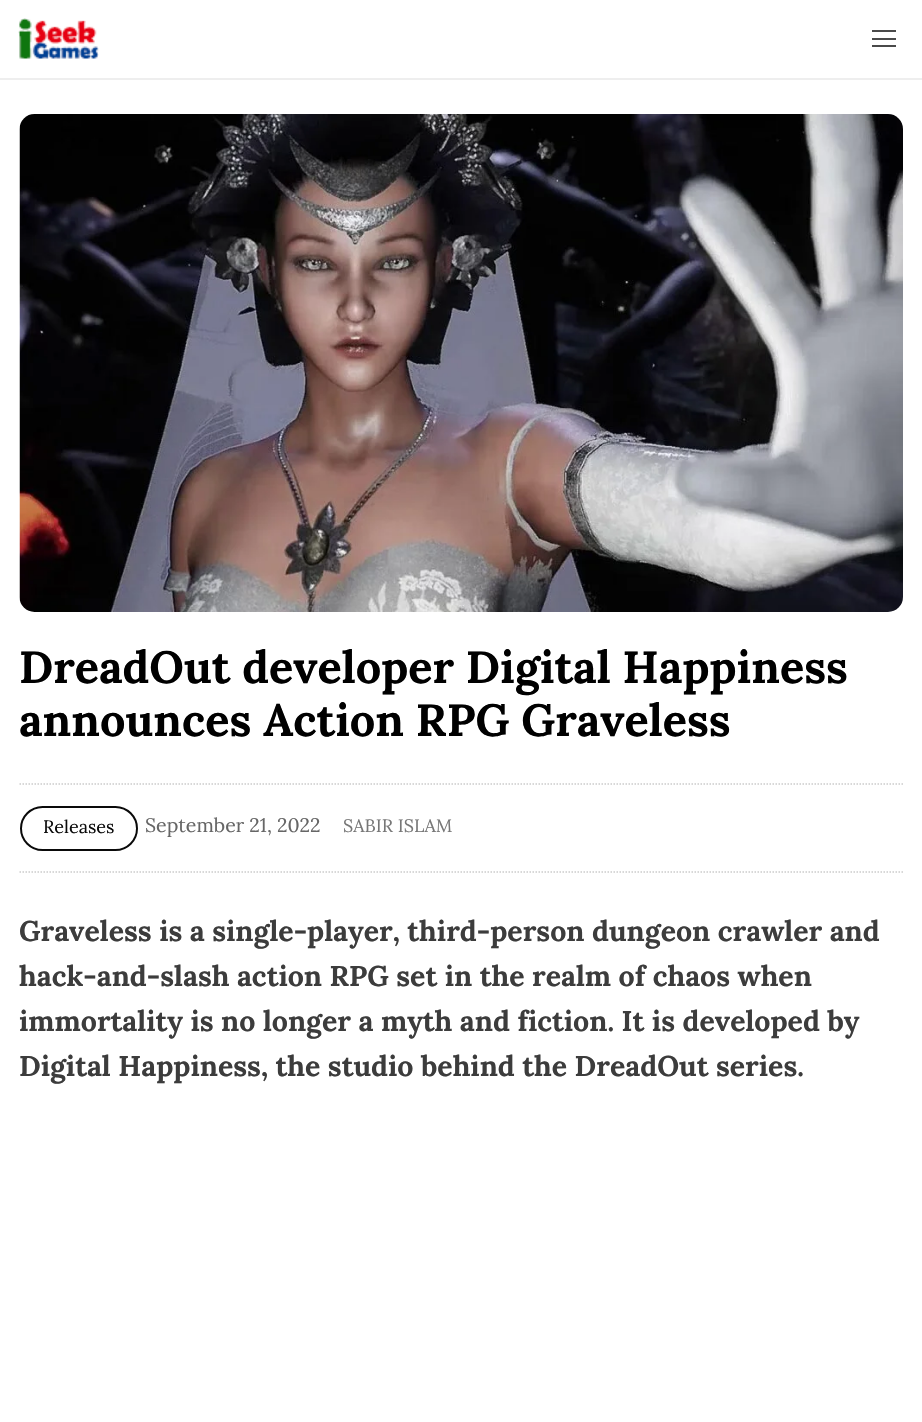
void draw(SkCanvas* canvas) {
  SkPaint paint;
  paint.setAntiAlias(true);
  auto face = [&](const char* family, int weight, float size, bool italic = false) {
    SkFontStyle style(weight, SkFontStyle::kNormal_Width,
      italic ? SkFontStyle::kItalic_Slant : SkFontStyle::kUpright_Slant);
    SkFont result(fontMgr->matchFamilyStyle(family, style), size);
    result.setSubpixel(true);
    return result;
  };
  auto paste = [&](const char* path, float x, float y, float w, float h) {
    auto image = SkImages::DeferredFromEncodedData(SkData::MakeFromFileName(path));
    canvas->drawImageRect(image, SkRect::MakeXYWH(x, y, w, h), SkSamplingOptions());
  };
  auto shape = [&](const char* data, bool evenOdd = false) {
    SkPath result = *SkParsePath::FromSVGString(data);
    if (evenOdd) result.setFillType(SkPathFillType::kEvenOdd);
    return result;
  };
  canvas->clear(0xffffffff);
  paint.setColor(0xffeeeeee);
  canvas->drawRect(SkRect::MakeXYWH(0, 78, 922, 2), paint);
  paste("img/1.png", 18, 18, 81, 41);
  {
    const struct { float x, y, w, h; SkColor color; } items[] = {
      {872, 30, 24, 2, 0xff4a4a4a},
      {872, 38, 24, 2, 0xff4a4a4a},
      {872, 45, 24, 2, 0xff4a4a4a},
    };
    for (auto [x, y, w, h, color] : items) {
      paint.setColor(color);
      canvas->drawRect(SkRect::MakeXYWH(x, y, w, h), paint);
    }
  }
  paste("img/2.png", 19, 114, 884, 498);
  paint.setStroke(true);
  paint.setStrokeWidth(1.5f);
  paint.setColor(0xffcccccc);
  paint.setPathEffect(SkDashPathEffect::Make({{1.5f, 1.5f}}, 0));
  canvas->drawPath(shape("M19.5 784H903"), paint);
  paint.setPathEffect(nullptr);
  paint.setPathEffect(SkDashPathEffect::Make({{1.5f, 1.5f}}, 0));
  canvas->drawPath(shape("M19.5 872H903"), paint);
  paint.setPathEffect(nullptr);
  paint.setStrokeWidth(2);
  paint.setColor(0xff0a0a0a);
  canvas->drawRoundRect(SkRect::MakeXYWH(21, 807, 116, 43), 21.5f, 21.5f, paint);
  auto f0 = face("Lora", 700, 45);
  paint.setStroke(false);
  paint.setColor(0xff000000);
  canvas->drawString("DreadOut developer Digital Happiness", 19, 683, f0, paint);
  canvas->drawString("announces Action RPG Graveless", 19, 736, f0, paint);
  auto f1 = face("Lora", 400, 18);
  paint.setColor(0xff0a0a0a);
  canvas->drawString("Releases", 43, 833, f1, paint);
  auto f2 = face("Lora", 400, 19.5f);
  paint.setColor(0xff666666);
  canvas->drawString("September 21, 2022", 145, 832, f2, paint);
  paint.setColor(0xff777777);
  canvas->drawString("SABIR ISLAM", 343, 832, f1, paint);
  auto f3 = face("Lora", 700, 28.5f);
  paint.setColor(0xff3c3c3c);
  {
    const struct { const char* s; float x, y; } items[] = {
      {"Graveless is a single-player, third-person dungeon crawler and", 19, 941},
      {"hack-and-slash action RPG set in the realm of chaos when", 19, 986},
      {"immortality is no longer a myth and fiction. It is developed by", 19, 1031},
      {"Digital Happiness, the studio behind the DreadOut series.", 19, 1076},
    };
    for (auto [s, x, y] : items) {
      canvas->drawString(s, x, y, f3, paint);
    }
  }
}
